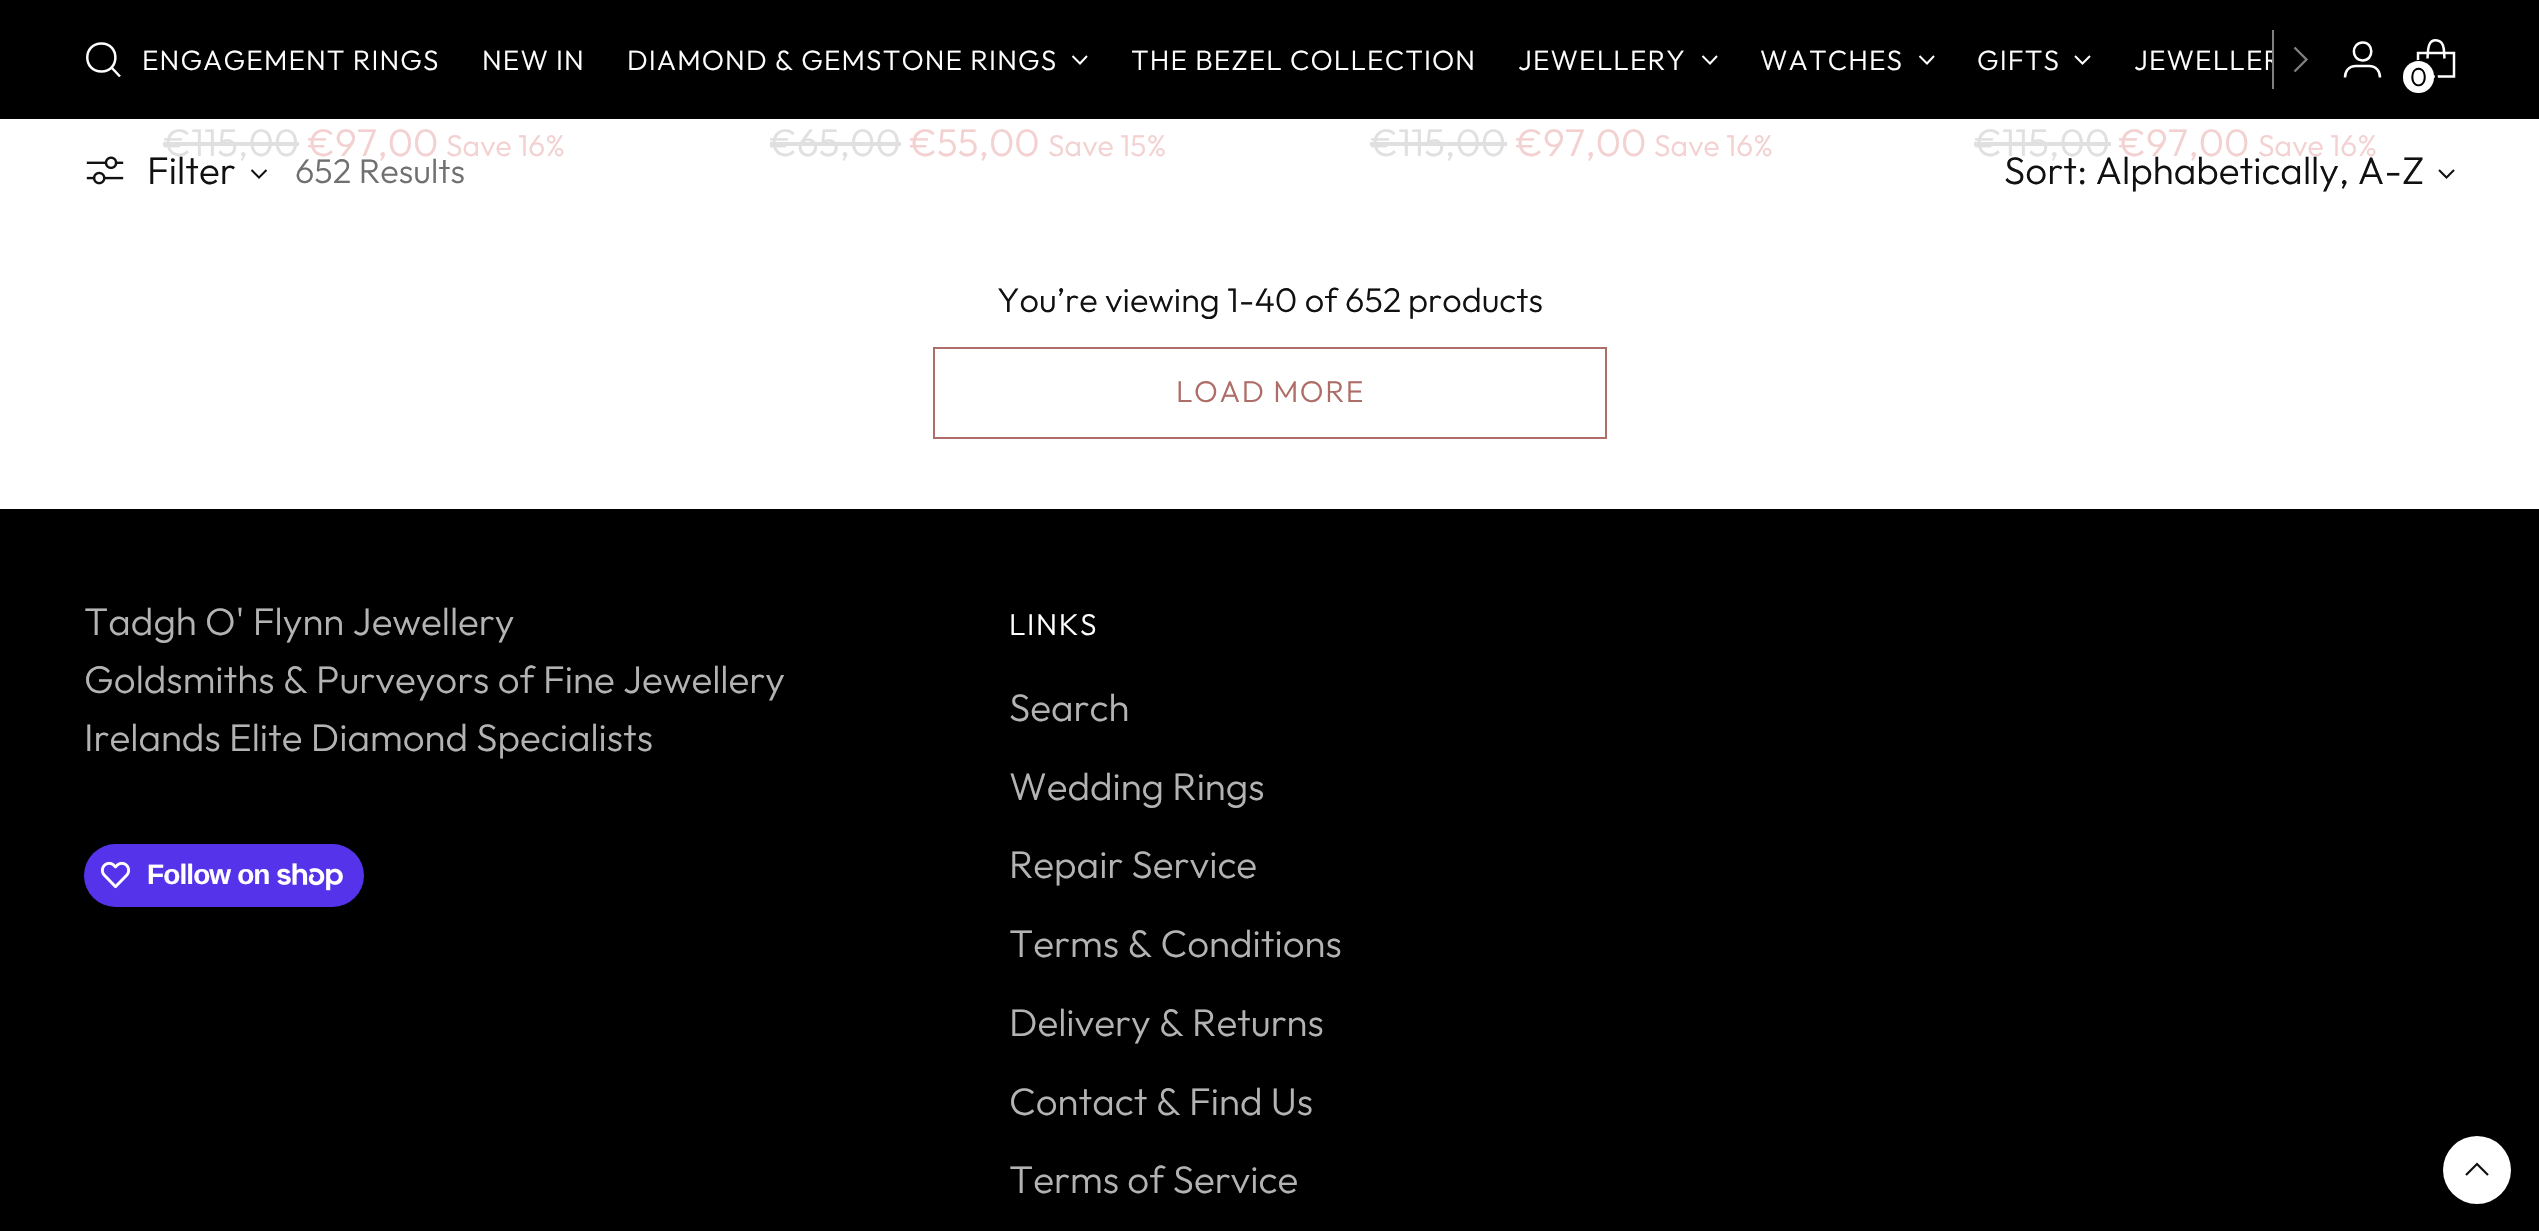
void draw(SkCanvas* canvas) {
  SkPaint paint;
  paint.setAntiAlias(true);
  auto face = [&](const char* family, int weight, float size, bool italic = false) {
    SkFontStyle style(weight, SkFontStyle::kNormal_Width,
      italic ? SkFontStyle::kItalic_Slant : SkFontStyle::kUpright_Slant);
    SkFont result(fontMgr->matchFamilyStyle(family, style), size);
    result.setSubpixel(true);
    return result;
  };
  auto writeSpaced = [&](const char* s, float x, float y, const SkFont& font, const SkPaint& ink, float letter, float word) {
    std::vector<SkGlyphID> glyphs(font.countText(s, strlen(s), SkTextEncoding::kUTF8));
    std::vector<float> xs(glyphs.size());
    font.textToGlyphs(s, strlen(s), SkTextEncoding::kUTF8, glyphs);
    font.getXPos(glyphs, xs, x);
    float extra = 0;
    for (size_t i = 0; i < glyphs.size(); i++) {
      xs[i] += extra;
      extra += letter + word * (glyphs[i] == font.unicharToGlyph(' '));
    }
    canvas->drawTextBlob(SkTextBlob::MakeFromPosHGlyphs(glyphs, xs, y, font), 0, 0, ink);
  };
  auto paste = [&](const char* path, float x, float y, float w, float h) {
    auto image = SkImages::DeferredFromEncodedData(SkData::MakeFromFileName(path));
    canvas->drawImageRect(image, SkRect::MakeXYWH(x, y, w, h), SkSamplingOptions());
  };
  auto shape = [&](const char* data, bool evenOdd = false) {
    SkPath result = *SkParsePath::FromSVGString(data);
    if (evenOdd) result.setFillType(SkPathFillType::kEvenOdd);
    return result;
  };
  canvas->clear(0xffffffff);
  paint.setColor(0xff000000);
  canvas->drawRect(SkRect::MakeXYWH(0, 0, 2539, 119), paint);
  paint.setStroke(true);
  paint.setStrokeWidth(2.5f);
  paint.setStrokeCap(SkPaint::kRound_Cap);
  paint.setColor(0xffffffff);
  canvas->drawPath(shape("M101.5 71.5C120 71.5 120 43.5 101.5 43.5C82.5 43.5 82.5 71.5 101.5 71.5Z"), paint);
  paint.setStrokeCap(SkPaint::kButt_Cap);
  canvas->drawPath(shape("M111.5 67.5L120 76.5"), paint);
  paint.setStrokeWidth(2);
  canvas->drawPath(shape("M1072.5 56L1080 63.5L1087 56"), paint);
  canvas->drawPath(shape("M1702.5 56L1710 63.5L1717 56"), paint);
  canvas->drawPath(shape("M1919.5 56L1927 63.5L1934 56"), paint);
  canvas->drawPath(shape("M2075 56L2082.5 63.5L2090 56"), paint);
  paint.setStroke(false);
  paint.setColor(0xff808080);
  canvas->drawRect(SkRect::MakeXYWH(2272, 30, 2, 59), paint);
  paint.setStroke(true);
  paint.setStrokeWidth(2.3f);
  canvas->drawPath(shape("M2294.5 71.5L2306.5 59.5L2294.5 47.5"), paint);
  paint.setStrokeWidth(2.5f);
  paint.setColor(0xffffffff);
  canvas->drawPath(shape("M2362.5 60.5C2374.5 60.5 2374 42 2362.5 42.5C2351 43 2351 60 2362.5 60.5ZM2345 77.5C2345 71.5 2348.5 66 2356 66H2369C2376.5 66 2380 71.5 2380 77.5"), paint);
  paint.setStrokeJoin(SkPaint::kBevel_Join);
  canvas->drawPath(shape("M2444.5 58.5C2444 54 2444.5 49.5 2443 45.5C2442 43 2440.5 41 2437.5 40.5C2427 38.5 2428 52 2427.5 58.5"), paint);
  paint.setStrokeJoin(SkPaint::kMiter_Join);
  canvas->drawPath(shape("M2454 76.5V53H2418V76.5Z"), paint);
  paint.setStrokeWidth(3);
  paint.setColor(0xff000000);
  canvas->drawRoundRect(SkRect::MakeXYWH(2402.5f, 61.5f, 34, 33), 16.5f, 16.5f, paint);
  paint.setStroke(false);
  paint.setColor(0xffffffff);
  canvas->drawRoundRect(SkRect::MakeXYWH(2403, 61, 31, 32), 15.5f, 15.5f, paint);
  {
    const struct { float x, y, w, h; SkColor color; } items[] = {
      {163, 142, 136, 4, 0xffe0e0e0},
      {770, 142, 131, 4, 0xffe0e0e0},
      {1370, 142, 137, 4, 0xffe0e0e0},
      {1974, 142, 137, 4, 0xffe0e0e0},
    };
    for (auto [x, y, w, h, color] : items) {
      paint.setColor(color);
      canvas->drawRect(SkRect::MakeXYWH(x, y, w, h), paint);
    }
  }
  paint.setStroke(true);
  paint.setStrokeWidth(2);
  paint.setColor(0xffae6d67);
  canvas->drawRect(SkRect::MakeXYWH(934, 348, 672, 90), paint);
  paste("img/1.png", 86, 156, 38, 29);
  paint.setColor(0xff111111);
  canvas->drawPath(shape("M251.5 170L259 177.5L266.5 170"), paint);
  canvas->drawPath(shape("M2439 170L2446.5 177.5L2454 170"), paint);
  paint.setStroke(false);
  paint.setColor(0xff000000);
  canvas->drawRect(SkRect::MakeXYWH(0, 509, 2539, 722), paint);
  paint.setColor(0xff5433eb);
  canvas->drawRoundRect(SkRect::MakeXYWH(84, 844, 280, 63), 31.5f, 31.5f, paint);
  paste("img/2.png", 100, 861, 31, 28);
  paste("img/3.png", 277, 863, 66, 28);
  paint.setColor(0xffffffff);
  canvas->drawCircle(2477, 1170, 34, paint);
  paint.setStroke(true);
  paint.setStrokeWidth(2.2f);
  paint.setColor(0xff111111);
  canvas->drawPath(shape("M2488 1175L2477 1164L2466 1175"), paint);
  auto f0 = face("Outfit", 300, 28);
  paint.setStroke(false);
  paint.setColor(0xffffffff);
  {
    const struct { const char* s; float x, y; } items[] = {
      {"ENGAGEMENT RINGS", 142, 70},
      {"NEW IN", 482, 70},
      {"DIAMOND & GEMSTONE RINGS", 627, 70},
      {"THE BEZEL COLLECTION", 1131, 70},
      {"JEWELLERY", 1518, 70},
      {"WATCHES", 1760, 70},
      {"GIFTS", 1977, 70},
    };
    for (auto [s, x, y] : items) {
      writeSpaced(s, x, y, f0, paint, 1.1f, 0);
    }
  }
  canvas->save();
  canvas->clipRect(SkRect::MakeXYWH(140, 0, 2132, 119));
  writeSpaced("JEWELLER", 2134, 70, f0, paint, 1.1f, 0);
  canvas->restore();
  auto f1 = face("Outfit", 300, 26);
  paint.setColor(0xff000000);
  canvas->drawString("0", 2410, 86, f1, paint);
  auto f2 = face("Outfit", 300, 38.5f);
  paint.setColor(0xffe0e0e0);
  canvas->drawString("€115,00", 163, 156, f2, paint);
  paint.setColor(0xfff3d1d1);
  canvas->drawString("€97,00", 307, 156, f2, paint);
  auto f3 = face("Outfit", 300, 30);
  canvas->drawString("Save 16%", 446, 156, f3, paint);
  paint.setColor(0xffe0e0e0);
  canvas->drawString("€65,00", 769, 156, f2, paint);
  paint.setColor(0xfff3d1d1);
  canvas->drawString("€55,00", 909, 156, f2, paint);
  canvas->drawString("Save 15%", 1048, 156, f3, paint);
  paint.setColor(0xffe0e0e0);
  canvas->drawString("€115,00", 1370, 156, f2, paint);
  paint.setColor(0xfff3d1d1);
  canvas->drawString("€97,00", 1515, 156, f2, paint);
  canvas->drawString("Save 16%", 1654, 156, f3, paint);
  paint.setColor(0xffe0e0e0);
  canvas->drawString("€115,00", 1974, 156, f2, paint);
  paint.setColor(0xfff3d1d1);
  canvas->drawString("€97,00", 2118, 156, f2, paint);
  canvas->drawString("Save 16%", 2258, 156, f3, paint);
  auto f4 = face("Outfit", 300, 34.25f);
  paint.setColor(0xff111111);
  canvas->drawString("You’re viewing 1-40 of 652", 997, 312, f4, paint);
  canvas->drawString("products", 1408, 312, f4, paint);
  paint.setColor(0xffae6d67);
  writeSpaced("LOAD MORE", 1176, 402, f3, paint, 1.5f, 0);
  paint.setColor(0xff111111);
  canvas->drawString("Filter", 147, 184, f2, paint);
  paint.setColor(0xff707070);
  canvas->drawString("652 Results", 295, 183, f4, paint);
  paint.setColor(0xff111111);
  canvas->drawString("Sort: Alphabetically, A-Z", 2004, 184, f2, paint);
  paint.setColor(0xffb3b3b3);
  {
    const struct { const char* s; float x, y; } items[] = {
      {"Tadgh O' Flynn Jewellery", 84, 635},
      {"Goldsmiths & Purveyors of Fine Jewellery", 84, 693},
      {"Irelands Elite Diamond Specialists", 84, 751},
    };
    for (auto [s, x, y] : items) {
      canvas->drawString(s, x, y, f2, paint);
    }
  }
  auto f5 = face("Liberation Sans", 700, 28);
  paint.setColor(0xffffffff);
  writeSpaced("Follow on", 147, 884, f5, paint, -0.9f, 0);
  writeSpaced("LINKS", 1009, 635, f3, paint, 1.5f, 0);
  paint.setColor(0xffb3b3b3);
  {
    const struct { const char* s; float x, y; } items[] = {
      {"Search", 1009, 721},
      {"Wedding Rings", 1009, 800},
      {"Repair Service", 1009, 878},
      {"Terms & Conditions", 1009, 957},
      {"Delivery & Returns", 1009, 1036},
      {"Contact & Find Us", 1009, 1115},
      {"Terms of Service", 1009, 1193},
    };
    for (auto [s, x, y] : items) {
      canvas->drawString(s, x, y, f2, paint);
    }
  }
}
